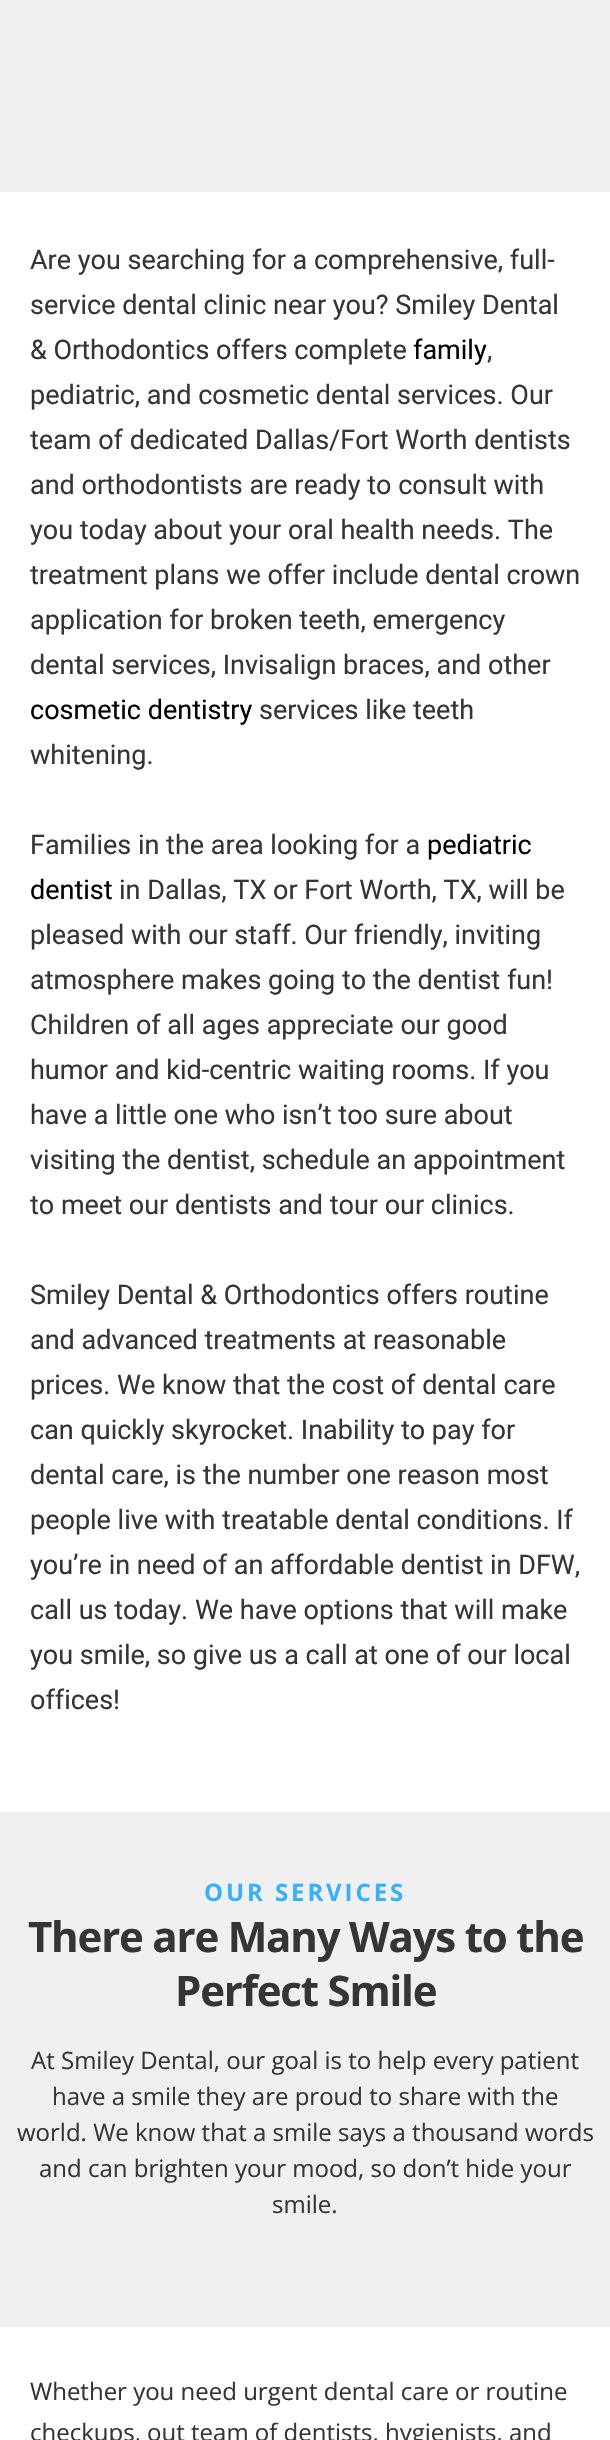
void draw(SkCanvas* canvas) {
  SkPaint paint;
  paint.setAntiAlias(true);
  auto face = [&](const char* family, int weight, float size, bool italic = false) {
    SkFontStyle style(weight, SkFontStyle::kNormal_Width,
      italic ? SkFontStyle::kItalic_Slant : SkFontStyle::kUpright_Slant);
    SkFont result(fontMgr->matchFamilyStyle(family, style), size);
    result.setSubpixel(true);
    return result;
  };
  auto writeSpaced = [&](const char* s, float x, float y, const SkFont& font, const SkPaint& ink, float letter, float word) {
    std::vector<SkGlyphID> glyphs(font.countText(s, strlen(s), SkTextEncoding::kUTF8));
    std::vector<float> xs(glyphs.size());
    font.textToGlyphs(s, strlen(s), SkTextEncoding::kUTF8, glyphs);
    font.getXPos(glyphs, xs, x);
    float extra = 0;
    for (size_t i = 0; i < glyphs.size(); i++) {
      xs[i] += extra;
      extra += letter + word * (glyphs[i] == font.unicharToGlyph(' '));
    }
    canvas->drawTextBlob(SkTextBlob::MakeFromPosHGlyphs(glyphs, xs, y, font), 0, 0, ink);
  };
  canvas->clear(0xfff0f0f0);
  paint.setColor(0xffffffff);
  canvas->drawRect(SkRect::MakeXYWH(0, 192, 610, 1620), paint);
  canvas->drawRect(SkRect::MakeXYWH(0, 2327, 610, 113), paint);
  auto f0 = face("Roboto", 400, 27);
  paint.setColor(0xff353535);
  {
    const struct { const char* s; float x, y; } items[] = {
      {"Are you searching for a comprehensive, full-", 30, 269},
      {"service dental clinic near you? Smiley Dental", 30, 314},
      {"& Orthodontics offers complete", 30, 359},
    };
    for (auto [s, x, y] : items) {
      canvas->drawString(s, x, y, f0, paint);
    }
  }
  paint.setColor(0xff000000);
  canvas->drawString("family", 413, 359, f0, paint);
  paint.setColor(0xff353535);
  {
    const struct { const char* s; float x, y; } items[] = {
      {",", 487, 359},
      {"pediatric, and cosmetic dental services. Our", 30, 404},
      {"team of dedicated Dallas/Fort Worth dentists", 30, 449},
      {"and orthodontists are ready to consult with", 30, 494},
      {"you today about your oral health needs. The", 30, 539},
      {"treatment plans we offer include dental crown", 30, 584},
      {"application for broken teeth, emergency", 30, 629},
      {"dental services, Invisalign braces, and other", 30, 674},
    };
    for (auto [s, x, y] : items) {
      canvas->drawString(s, x, y, f0, paint);
    }
  }
  paint.setColor(0xff000000);
  canvas->drawString("cosmetic dentistry", 30, 719, f0, paint);
  paint.setColor(0xff353535);
  {
    const struct { const char* s; float x, y; } items[] = {
      {"services like teeth", 259, 719},
      {"whitening.", 30, 764},
      {"Families in the area looking for a", 30, 854},
    };
    for (auto [s, x, y] : items) {
      canvas->drawString(s, x, y, f0, paint);
    }
  }
  paint.setColor(0xff000000);
  canvas->drawString("pediatric", 427, 854, f0, paint);
  canvas->drawString("dentist", 30, 899, f0, paint);
  paint.setColor(0xff353535);
  {
    const struct { const char* s; float x, y; } items[] = {
      {"in Dallas, TX or Fort Worth, TX, will be", 119, 899},
      {"pleased with our staff. Our friendly, inviting", 30, 944},
      {"atmosphere makes going to the dentist fun!", 30, 989},
      {"Children of all ages appreciate our good", 30, 1034},
      {"humor and kid-centric waiting rooms. If you", 30, 1079},
      {"have a little one who isn’t too sure about", 30, 1124},
      {"visiting the dentist, schedule an appointment", 30, 1169},
      {"to meet our dentists and tour our clinics.", 30, 1214},
      {"Smiley Dental & Orthodontics offers routine", 30, 1304},
      {"and advanced treatments at reasonable", 30, 1349},
      {"prices. We know that the cost of dental care", 30, 1394},
      {"can quickly skyrocket. Inability to pay for", 30, 1439},
      {"dental care, is the number one reason most", 30, 1484},
      {"people live with treatable dental conditions. If", 30, 1529},
      {"you’re in need of an affordable dentist in DFW,", 30, 1574},
      {"call us today. We have options that will make", 30, 1619},
      {"you smile, so give us a call at one of our local", 30, 1664},
      {"offices!", 30, 1709},
    };
    for (auto [s, x, y] : items) {
      canvas->drawString(s, x, y, f0, paint);
    }
  }
  auto f1 = face("Open Sans", 700, 24);
  paint.setColor(0xff35b1ff);
  writeSpaced("OUR SERVICES", 204, 1901, f1, paint, 2.9f, 0);
  auto f2 = face("Open Sans", 700, 42);
  paint.setColor(0xff353535);
  writeSpaced("There are Many Ways to the", 28, 1952, f2, paint, -1.2f, 0);
  writeSpaced("Perfect Smile", 175, 2006, f2, paint, -1.2f, 0);
  auto f3 = face("Open Sans", 400, 24);
  {
    const struct { const char* s; float x, y; } items[] = {
      {"At Smiley Dental, our goal is to help every patient", 31, 2069},
      {"have a smile they are proud to share with the", 52, 2105},
      {"world. We know that a smile says a thousand words", 17, 2141},
      {"and can brighten your mood, so don’t hide your", 39, 2177},
      {"smile.", 272, 2213},
      {"Whether you need urgent dental care or routine", 30, 2400},
      {"checkups, out team of dentists, hygienists, and", 30, 2441},
    };
    for (auto [s, x, y] : items) {
      canvas->drawString(s, x, y, f3, paint);
    }
  }
}
